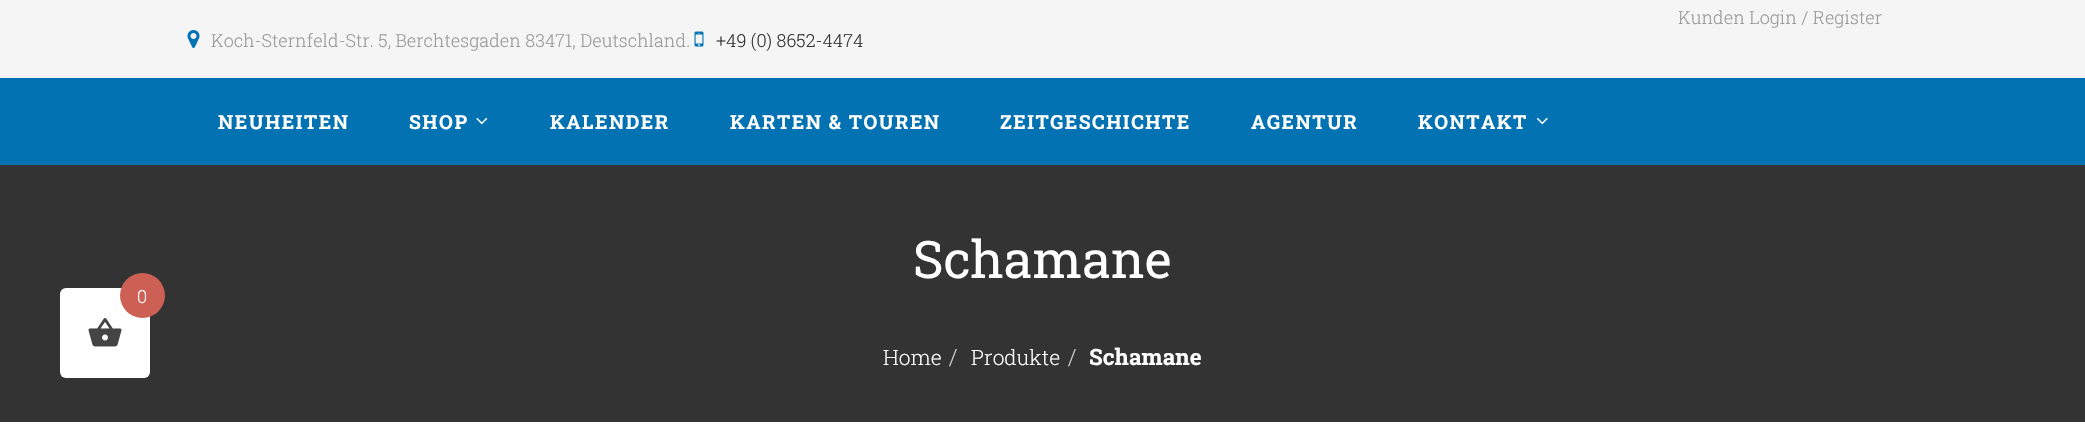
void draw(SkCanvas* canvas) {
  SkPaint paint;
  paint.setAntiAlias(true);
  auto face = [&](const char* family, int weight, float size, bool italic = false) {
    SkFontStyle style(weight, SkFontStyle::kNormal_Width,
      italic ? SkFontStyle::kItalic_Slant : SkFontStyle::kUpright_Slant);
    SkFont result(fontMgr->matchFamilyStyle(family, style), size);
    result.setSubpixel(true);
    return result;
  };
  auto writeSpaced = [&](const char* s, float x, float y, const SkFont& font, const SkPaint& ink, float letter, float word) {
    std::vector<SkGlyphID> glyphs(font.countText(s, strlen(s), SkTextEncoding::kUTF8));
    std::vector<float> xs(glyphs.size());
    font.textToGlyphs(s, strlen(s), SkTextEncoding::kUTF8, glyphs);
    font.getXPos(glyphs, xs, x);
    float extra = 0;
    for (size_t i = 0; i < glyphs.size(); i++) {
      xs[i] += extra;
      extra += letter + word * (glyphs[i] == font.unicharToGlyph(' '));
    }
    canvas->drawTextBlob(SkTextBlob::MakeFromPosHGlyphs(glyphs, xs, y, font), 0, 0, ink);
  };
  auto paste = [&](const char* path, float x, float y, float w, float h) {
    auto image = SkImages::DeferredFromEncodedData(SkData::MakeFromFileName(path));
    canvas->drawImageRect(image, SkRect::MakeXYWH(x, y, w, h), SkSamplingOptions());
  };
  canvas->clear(0xffffffff);
  paint.setColor(0xff333333);
  canvas->drawRect(SkRect::MakeXYWH(0, 165, 2085, 257), paint);
  paint.setColor(0xffffffff);
  canvas->drawRoundRect(SkRect::MakeXYWH(60, 288, 90, 90), 6, 6, paint);
  paint.setColor(0xffcc6055);
  canvas->drawCircle(142.5f, 295.5f, 22.5f, paint);
  paste("img/1.png", 88, 318, 34, 29);
  paint.setColor(0xfff5f5f5);
  canvas->drawRect(SkRect::MakeXYWH(0, 0, 2085, 78), paint);
  paste("img/2.png", 187, 30, 13, 18);
  paste("img/3.png", 694, 31, 10, 16);
  paint.setColor(0xff0272b2);
  canvas->drawRect(SkRect::MakeXYWH(0, 78, 2085, 87), paint);
  paste("img/4.png", 476, 117, 12, 8);
  paste("img/5.png", 1536, 117, 12, 8);
  auto f0 = face("Roboto Slab", 300, 18);
  paint.setColor(0xffffffff);
  canvas->drawString("0", 137, 303, f0, paint);
  paint.setColor(0xff999999);
  canvas->drawString("Kunden Login / Register", 1678, 24, f0, paint);
  canvas->drawString("Koch-Sternfeld-Str. 5, Berchtesgaden 83471, Deutschland.", 211, 47, f0, paint);
  paint.setColor(0xff333333);
  canvas->drawString("+49 (0) 8652-4474", 716, 47, f0, paint);
  auto f1 = face("Roboto Slab", 700, 19.5f);
  paint.setColor(0xffffffff);
  {
    const struct { const char* s; float x, y; } items[] = {
      {"NEUHEITEN", 218, 129},
      {"SHOP", 409, 129},
      {"KALENDER", 550, 129},
      {"KARTEN & TOUREN", 730, 129},
      {"ZEITGESCHICHTE", 1000, 129},
      {"AGENTUR", 1251, 129},
      {"KONTAKT", 1418, 129},
    };
    for (auto [s, x, y] : items) {
      writeSpaced(s, x, y, f1, paint, 1.5f, 0);
    }
  }
  auto f2 = face("Roboto Slab", 400, 51.75f);
  canvas->drawString("Schamane", 913, 278, f2, paint);
  auto f3 = face("Roboto Slab", 300, 21);
  canvas->drawString("Home", 883, 365, f3, paint);
  auto f4 = face("Roboto Slab", 300, 22.5f);
  paint.setColor(0xffcccccc);
  canvas->drawString("/", 949, 365, f4, paint);
  paint.setColor(0xffffffff);
  canvas->drawString("Produkte", 971, 365, f3, paint);
  paint.setColor(0xffcccccc);
  canvas->drawString("/", 1068, 365, f4, paint);
  auto f5 = face("Roboto Slab", 700, 22.5f);
  paint.setColor(0xffffffff);
  canvas->drawString("Schamane", 1089, 365, f5, paint);
}
